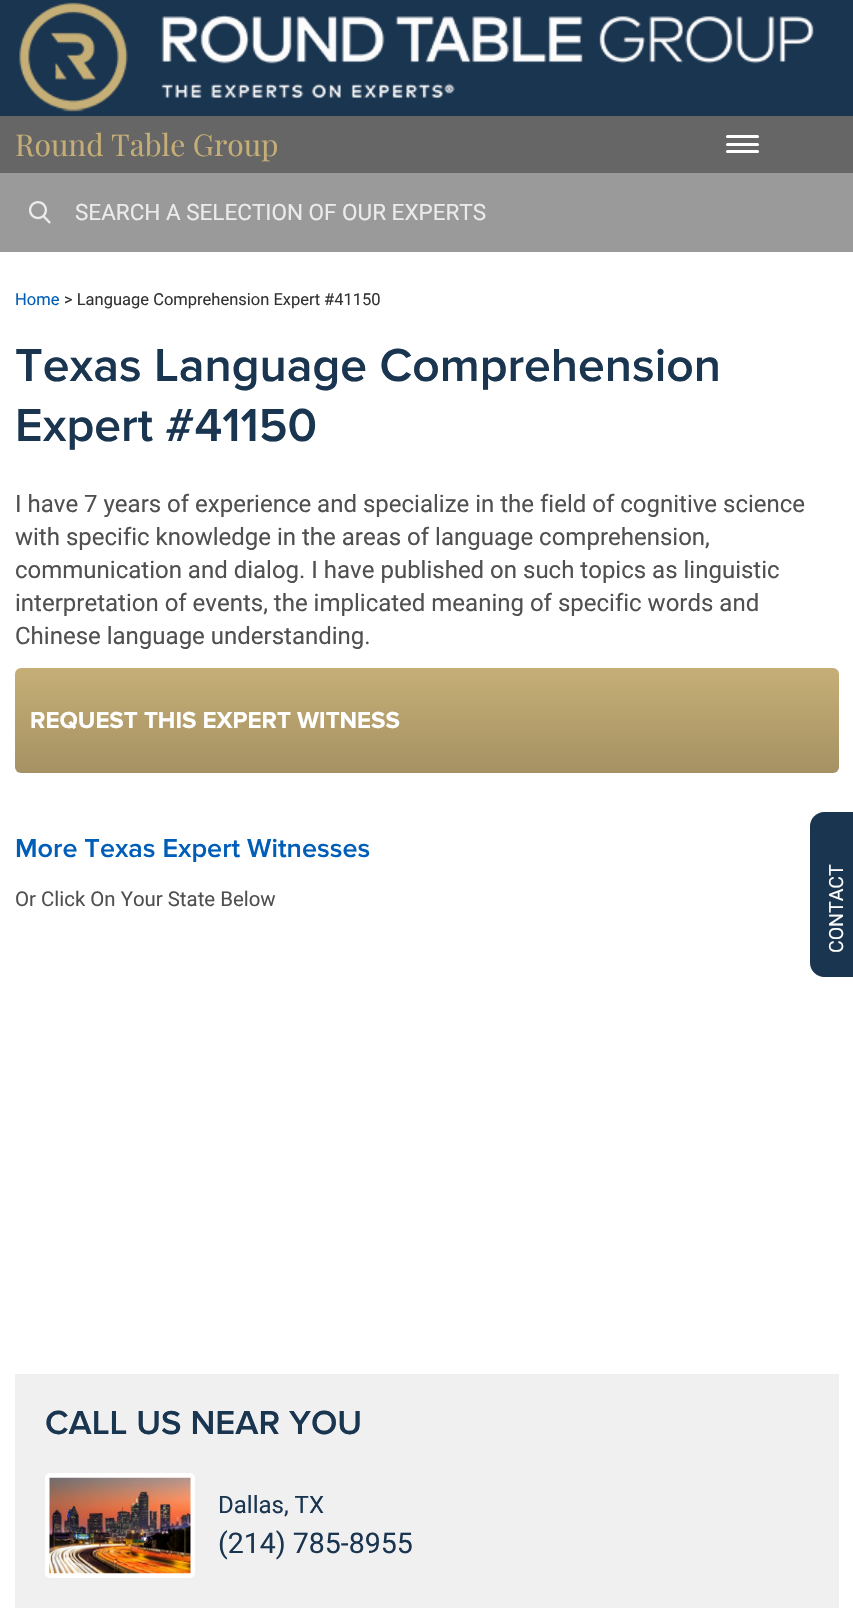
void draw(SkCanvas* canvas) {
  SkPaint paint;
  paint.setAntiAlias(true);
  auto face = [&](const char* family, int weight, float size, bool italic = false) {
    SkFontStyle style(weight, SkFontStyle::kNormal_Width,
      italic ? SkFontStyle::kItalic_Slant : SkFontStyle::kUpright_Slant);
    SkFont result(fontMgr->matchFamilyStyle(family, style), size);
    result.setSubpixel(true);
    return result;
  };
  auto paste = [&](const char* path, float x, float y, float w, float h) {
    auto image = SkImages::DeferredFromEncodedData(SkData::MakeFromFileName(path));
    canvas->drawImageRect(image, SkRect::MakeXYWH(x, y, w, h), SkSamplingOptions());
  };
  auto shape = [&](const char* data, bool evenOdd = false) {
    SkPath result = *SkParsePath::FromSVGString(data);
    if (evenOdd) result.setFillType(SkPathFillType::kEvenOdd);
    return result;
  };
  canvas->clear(0xffffffff);
  paint.setColor(0xff1a3550);
  canvas->drawRect(SkRect::MakeXYWH(0, 0, 853, 116), paint);
  paste("img/1.png", 19, 2, 795, 110);
  paint.setColor(0xff666666);
  canvas->drawRect(SkRect::MakeXYWH(0, 116, 853, 57), paint);
  paint.setColor(0xffffffff);
  canvas->drawRoundRect(SkRect::MakeXYWH(726, 135, 33, 3), 1.5f, 1.5f, paint);
  canvas->drawRoundRect(SkRect::MakeXYWH(726, 143, 33, 3), 1.5f, 1.5f, paint);
  canvas->drawRoundRect(SkRect::MakeXYWH(726, 150, 33, 3), 1.5f, 1.5f, paint);
  paint.setColor(0xff9a9a9a);
  canvas->drawRect(SkRect::MakeXYWH(0, 173, 853, 79), paint);
  paste("img/2.png", 29, 201, 22, 23);
  {
    const SkColor colors[] = {0xffc6af77, 0xffa59163};
    const float stops[] = {0, 1};
    const SkPoint ends[] = {{427, 667}, {427, 773}};
    paint.setShader(SkGradientShader::MakeLinear(ends, colors, stops, 2, SkTileMode::kClamp));
    paint.setAlpha(255);
  }
  canvas->drawRoundRect(SkRect::MakeXYWH(15, 668, 824, 105), 6, 6, paint);
  paint.setShader(nullptr);
  paint.setColor(0xfff0f0f0);
  canvas->drawRect(SkRect::MakeXYWH(15, 1374, 824, 234), paint);
  paint.setStroke(true);
  paint.setStrokeWidth(5);
  paint.setColor(0xffffffff);
  canvas->drawRoundRect(SkRect::MakeXYWH(47.5f, 1475.5f, 145, 100), 2.5f, 2.5f, paint);
  paste("img/3.png", 49, 1477, 142, 97);
  paint.setStroke(false);
  paint.setColor(0xff1a3550);
  canvas->drawPath(shape("M824 812H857V977H824C816.5 977 810 970.5 810 963V826C810 818.5 816.5 812 824 812Z"), paint);
  auto f0 = face("Playfair Display", 400, 30);
  paint.setColor(0xffc6af77);
  canvas->drawString("Round Table Group", 15, 156, f0, paint);
  auto f1 = face("Roboto", 400, 22.5f);
  paint.setColor(0xffebebeb);
  canvas->drawString("SEARCH A SELECTION OF OUR EXPERTS", 75, 220, f1, paint);
  auto f2 = face("Roboto", 400, 16.5f);
  paint.setColor(0xff005eb8);
  canvas->drawString("Home", 15, 305, f2, paint);
  paint.setColor(0xff333333);
  canvas->drawString("> Language Comprehension Expert #41150", 64, 305, f2, paint);
  auto f3 = face("Proxima Nova", 600, 48);
  paint.setColor(0xff1a3550);
  canvas->drawString("Texas Language Comprehension", 15, 381, f3, paint);
  canvas->drawString("Expert #41150", 15, 441, f3, paint);
  auto f4 = face("Roboto", 400, 24);
  paint.setColor(0xff505050);
  {
    const struct { const char* s; float x, y; } items[] = {
      {"I have 7 years of experience and specialize in the field of cognitive science", 15, 512},
      {"with specific knowledge in the areas of language comprehension,", 15, 545},
      {"communication and dialog. I have published on such topics as linguistic", 15, 578},
      {"interpretation of events, the implicated meaning of specific words and", 15, 611},
      {"Chinese language understanding.", 15, 644},
    };
    for (auto [s, x, y] : items) {
      canvas->drawString(s, x, y, f4, paint);
    }
  }
  auto f5 = face("Proxima Nova", 700, 24);
  paint.setColor(0xffffffff);
  canvas->drawString("REQUEST THIS EXPERT WITNESS", 30, 728, f5, paint);
  auto f6 = face("Proxima Nova", 600, 27);
  paint.setColor(0xff005eb8);
  canvas->drawString("More Texas Expert Witnesses", 15, 857, f6, paint);
  auto f7 = face("Roboto", 400, 20.4f);
  paint.setColor(0xff505050);
  canvas->drawString("Or Click On Your State Below", 15, 906, f7, paint);
  auto f8 = face("Proxima Nova", 600, 34.5f);
  paint.setColor(0xff1a3550);
  canvas->drawString("CALL US NEAR YOU", 45, 1434, f8, paint);
  canvas->drawString("Dallas, TX", 218, 1513, f4, paint);
  auto f9 = face("Roboto", 400, 28.5f);
  canvas->drawString("(214) 785-8955", 218, 1553, f9, paint);
  auto f10 = face("Roboto", 400, 19.5f);
  paint.setColor(0xffffffff);
  canvas->save();
  canvas->rotate(-90, 843, 953);
  canvas->drawString("CONTACT", 843, 953, f10, paint);
  canvas->restore();
}
